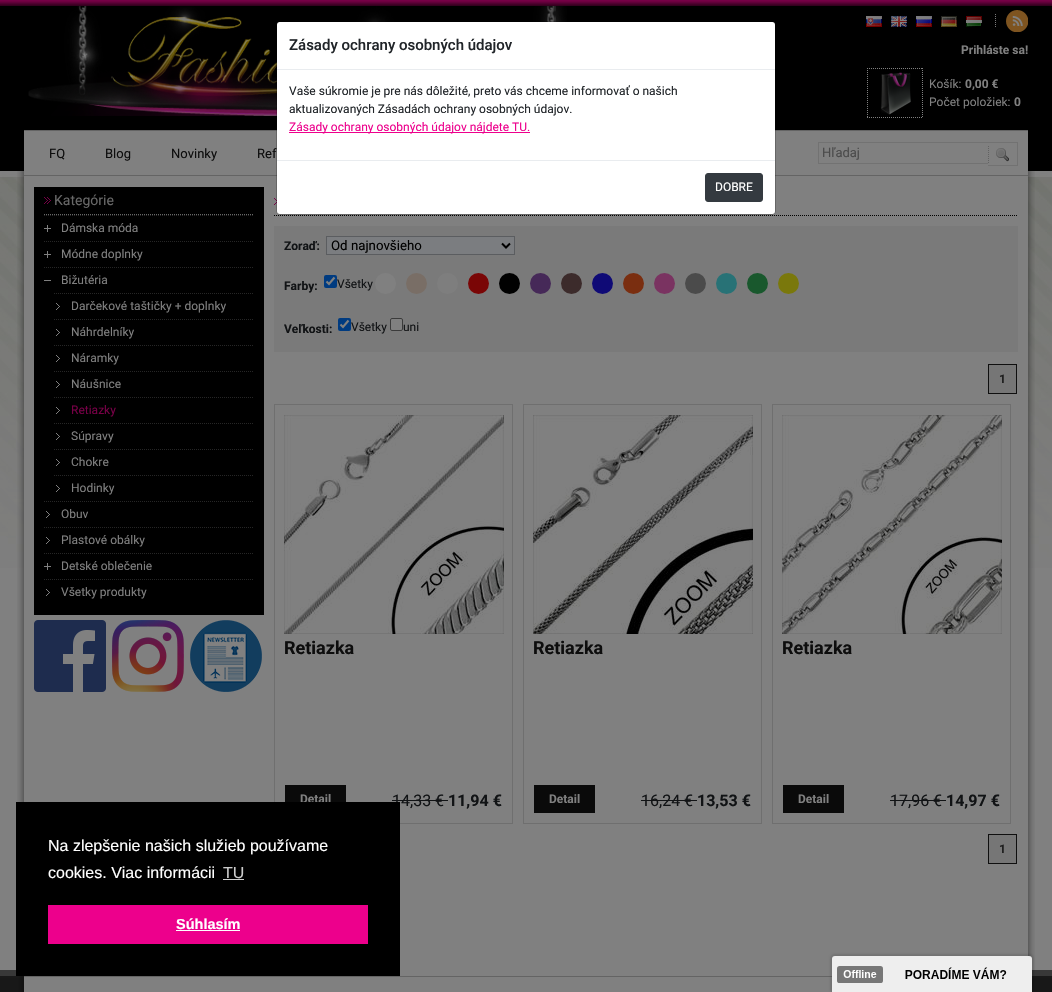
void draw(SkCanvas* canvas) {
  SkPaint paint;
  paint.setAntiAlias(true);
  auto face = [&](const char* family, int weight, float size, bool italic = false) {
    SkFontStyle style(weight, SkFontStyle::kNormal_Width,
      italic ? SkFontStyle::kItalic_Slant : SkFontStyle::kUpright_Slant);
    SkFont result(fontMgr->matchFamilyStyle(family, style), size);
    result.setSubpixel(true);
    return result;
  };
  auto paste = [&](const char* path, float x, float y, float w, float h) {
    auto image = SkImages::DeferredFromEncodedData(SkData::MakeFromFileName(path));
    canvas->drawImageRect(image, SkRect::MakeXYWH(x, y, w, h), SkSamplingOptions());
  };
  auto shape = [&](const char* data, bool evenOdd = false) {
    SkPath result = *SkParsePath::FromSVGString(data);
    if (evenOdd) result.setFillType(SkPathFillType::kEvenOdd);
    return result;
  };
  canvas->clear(0xff808080);
  paste("img/1.png", 0, 0, 1052, 568);
  paste("img/2.png", 28, 6, 539, 110);
  paste("img/23.png", 0, 970, 1052, 22);
  {
    const struct { float x, y, w, h; SkColor color; } items[] = {
      {24, 131, 1004, 861, 0xff808080},
      {24, 130, 1004, 1, 0xff646464},
      {24, 175, 1004, 1, 0xff646464},
    };
    for (auto [x, y, w, h, color] : items) {
      paint.setColor(color);
      canvas->drawRect(SkRect::MakeXYWH(x, y, w, h), paint);
    }
  }
  paint.setColor(0xffffffff);
  canvas->drawRoundRect(SkRect::MakeXYWH(277, 22, 498, 192), 2.5f, 2.5f, paint);
  paste("img/3.png", 866, 16, 16, 11);
  paste("img/4.png", 891, 16, 16, 11);
  paste("img/5.png", 916, 16, 16, 11);
  paste("img/6.png", 941, 16, 16, 11);
  paste("img/7.png", 966, 16, 16, 11);
  paint.setStroke(true);
  paint.setStrokeWidth(1);
  paint.setColor(0xff797979);
  paint.setPathEffect(SkDashPathEffect::Make({{1, 1}}, 0));
  canvas->drawPath(shape("M995.5 14V28"), paint);
  paint.setPathEffect(nullptr);
  paste("img/8.png", 1006, 10, 22, 22);
  paint.setColor(0xff808080);
  paint.setPathEffect(SkDashPathEffect::Make({{1, 1}}, 0));
  canvas->drawPath(shape("M867 68.5H923M922.5 68V118M867 117.5H923M867.5 68V118"), paint);
  paint.setPathEffect(nullptr);
  paste("img/9.png", 880, 72, 31, 43);
  paste("img/10.png", 17, 171, 7, 821);
  paint.setStroke(false);
  {
    const struct { float x, y, w, h; SkColor color; } items[] = {
      {818, 142, 170, 1, 0xff727272},
      {818, 163, 170, 1, 0xff727272},
      {818, 142, 1, 22, 0xff727272},
    };
    for (auto [x, y, w, h, color] : items) {
      paint.setColor(color);
      canvas->drawRect(SkRect::MakeXYWH(x, y, w, h), paint);
    }
  }
  paste("img/11.png", 988, 142, 30, 24);
  paint.setColor(0xff000000);
  canvas->drawRect(SkRect::MakeXYWH(34, 187, 230, 428), paint);
  paste("img/12.png", 44, 197, 7, 7);
  paint.setStroke(true);
  paint.setColor(0xff686868);
  paint.setPathEffect(SkDashPathEffect::Make({{1, 1}}, 0));
  canvas->drawPath(shape("M44 214.5H254"), paint);
  paint.setPathEffect(nullptr);
  paint.setColor(0xff262626);
  paint.setPathEffect(SkDashPathEffect::Make({{1, 1}}, 0));
  canvas->drawPath(shape("M44 215.5H254"), paint);
  paint.setPathEffect(nullptr);
  paste("img/13.png", 44, 225, 7, 7);
  paint.setPathEffect(SkDashPathEffect::Make({{1, 1}}, 0));
  canvas->drawPath(shape("M44 241.5H254"), paint);
  paint.setPathEffect(nullptr);
  paste("img/13.png", 44, 251, 7, 7);
  paint.setPathEffect(SkDashPathEffect::Make({{1, 1}}, 0));
  canvas->drawPath(shape("M44 267.5H254"), paint);
  paint.setPathEffect(nullptr);
  paint.setStroke(false);
  paint.setColor(0xff808080);
  canvas->drawRect(SkRect::MakeXYWH(44, 280, 7, 1), paint);
  paint.setStroke(true);
  paint.setColor(0xff262626);
  paint.setPathEffect(SkDashPathEffect::Make({{1, 1}}, 0));
  canvas->drawPath(shape("M54 293.5H254"), paint);
  paint.setPathEffect(nullptr);
  paste("img/14.png", 56, 303, 4, 7);
  paint.setPathEffect(SkDashPathEffect::Make({{1, 1}}, 0));
  canvas->drawPath(shape("M54 319.5H254"), paint);
  paint.setPathEffect(nullptr);
  paste("img/14.png", 56, 329, 4, 7);
  paint.setPathEffect(SkDashPathEffect::Make({{1, 1}}, 0));
  canvas->drawPath(shape("M54 345.5H254"), paint);
  paint.setPathEffect(nullptr);
  paste("img/14.png", 56, 355, 4, 7);
  paint.setPathEffect(SkDashPathEffect::Make({{1, 1}}, 0));
  canvas->drawPath(shape("M54 371.5H254"), paint);
  paint.setPathEffect(nullptr);
  paste("img/14.png", 56, 381, 4, 7);
  paint.setPathEffect(SkDashPathEffect::Make({{1, 1}}, 0));
  canvas->drawPath(shape("M54 397.5H254"), paint);
  paint.setPathEffect(nullptr);
  paste("img/14.png", 56, 407, 4, 7);
  paint.setPathEffect(SkDashPathEffect::Make({{1, 1}}, 0));
  canvas->drawPath(shape("M54 423.5H254"), paint);
  paint.setPathEffect(nullptr);
  paste("img/14.png", 56, 433, 4, 7);
  paint.setPathEffect(SkDashPathEffect::Make({{1, 1}}, 0));
  canvas->drawPath(shape("M54 449.5H254"), paint);
  paint.setPathEffect(nullptr);
  paste("img/14.png", 56, 459, 4, 7);
  paint.setPathEffect(SkDashPathEffect::Make({{1, 1}}, 0));
  canvas->drawPath(shape("M54 475.5H254"), paint);
  paint.setPathEffect(nullptr);
  paste("img/14.png", 56, 485, 4, 7);
  paint.setPathEffect(SkDashPathEffect::Make({{1, 1}}, 0));
  canvas->drawPath(shape("M44 501.5H254"), paint);
  paint.setPathEffect(nullptr);
  paste("img/14.png", 46, 511, 4, 7);
  paint.setPathEffect(SkDashPathEffect::Make({{1, 1}}, 0));
  canvas->drawPath(shape("M44 527.5H254"), paint);
  paint.setPathEffect(nullptr);
  paste("img/14.png", 46, 537, 4, 7);
  paint.setPathEffect(SkDashPathEffect::Make({{1, 1}}, 0));
  canvas->drawPath(shape("M44 553.5H254"), paint);
  paint.setPathEffect(nullptr);
  paste("img/13.png", 44, 563, 7, 7);
  paint.setPathEffect(SkDashPathEffect::Make({{1, 1}}, 0));
  canvas->drawPath(shape("M44 579.5H254"), paint);
  paint.setPathEffect(nullptr);
  paste("img/14.png", 46, 589, 4, 7);
  paste("img/15.png", 34, 620, 72, 72);
  paste("img/16.png", 112, 620, 72, 72);
  paste("img/17.png", 190, 620, 72, 72);
  paste("img/18.png", 274, 198, 3, 7);
  paint.setColor(0xff000000);
  paint.setPathEffect(SkDashPathEffect::Make({{1, 1}}, 0));
  canvas->drawPath(shape("M274 215.5H1018"), paint);
  paint.setPathEffect(nullptr);
  paint.setStroke(false);
  paint.setColor(0xff7a7a7a);
  canvas->drawRect(SkRect::MakeXYWH(274, 226, 744, 126), paint);
  paint.setColor(0xff7b7d80);
  canvas->drawRect(SkRect::MakeXYWH(326.5f, 236.5f, 188, 18), paint);
  paint.setStroke(true);
  paint.setColor(0xff5b5d60);
  canvas->drawRect(SkRect::MakeXYWH(326.5f, 236.5f, 188, 18), paint);
  paint.setStrokeWidth(2);
  paint.setColor(0xff000000);
  canvas->drawPath(shape("M502 243.5L506 247.5L510 243.5"), paint);
  paint.setStroke(false);
  paint.setColor(0xff003b80);
  canvas->drawRoundRect(SkRect::MakeXYWH(324, 275, 13, 13), 2, 2, paint);
  paint.setStroke(true);
  paint.setStrokeWidth(2.1f);
  paint.setColor(0xff808080);
  canvas->drawPath(shape("M326.5 281.5L329 284L334.5 277.5"), paint);
  paint.setStroke(false);
  canvas->drawCircle(385.5f, 283.5f, 10.5f, paint);
  paint.setColor(0xff796e66);
  canvas->drawCircle(416.5f, 283.5f, 10.5f, paint);
  paint.setColor(0xff7e7e7e);
  canvas->drawCircle(447.5f, 283.5f, 10.5f, paint);
  paint.setColor(0xff7a0606);
  canvas->drawCircle(478.5f, 283.5f, 10.5f, paint);
  paint.setColor(0xff010101);
  canvas->drawCircle(509.5f, 283.5f, 10.5f, paint);
  paint.setColor(0xff462958);
  canvas->drawCircle(540.5f, 283.5f, 10.5f, paint);
  paint.setColor(0xff3c2b2b);
  canvas->drawCircle(571.5f, 283.5f, 10.5f, paint);
  paint.setColor(0xff0f0a76);
  canvas->drawCircle(602.5f, 283.5f, 10.5f, paint);
  paint.setColor(0xff7a2e10);
  canvas->drawCircle(633.5f, 283.5f, 10.5f, paint);
  paint.setColor(0xff7a3361);
  canvas->drawCircle(664.5f, 283.5f, 10.5f, paint);
  paint.setColor(0xff4b4b4b);
  canvas->drawCircle(695.5f, 283.5f, 10.5f, paint);
  paint.setColor(0xff287276);
  canvas->drawCircle(726.5f, 283.5f, 10.5f, paint);
  paint.setColor(0xff19582d);
  canvas->drawCircle(757.5f, 283.5f, 10.5f, paint);
  paint.setColor(0xff7a780c);
  canvas->drawCircle(788.5f, 283.5f, 10.5f, paint);
  paint.setColor(0xff003b80);
  canvas->drawRoundRect(SkRect::MakeXYWH(338, 318, 13, 13), 2, 2, paint);
  paint.setStroke(true);
  paint.setColor(0xff808080);
  canvas->drawPath(shape("M340.5 324.5L343 327L348.5 320.5"), paint);
  paint.setStroke(false);
  canvas->drawRoundRect(SkRect::MakeXYWH(390.5f, 318.5f, 12, 12), 1.5f, 1.5f, paint);
  paint.setStroke(true);
  paint.setStrokeWidth(1);
  paint.setColor(0xff3b3b3b);
  canvas->drawRoundRect(SkRect::MakeXYWH(390.5f, 318.5f, 12, 12), 1.5f, 1.5f, paint);
  paint.setStroke(false);
  paint.setColor(0xff767676);
  canvas->drawRect(SkRect::MakeXYWH(988.5f, 364.5f, 28, 29), paint);
  paint.setStroke(true);
  paint.setColor(0xff0f0f0f);
  canvas->drawRect(SkRect::MakeXYWH(988.5f, 364.5f, 28, 29), paint);
  paint.setColor(0xff6f6f6f);
  canvas->drawRect(SkRect::MakeXYWH(274.5f, 404.5f, 238, 419), paint);
  paste("img/19.png", 284, 415, 220, 219);
  paint.setStroke(false);
  paint.setColor(0xff0a0a0a);
  canvas->drawRect(SkRect::MakeXYWH(285, 785, 61, 17), paint);
  paint.setColor(0xff111315);
  canvas->drawRect(SkRect::MakeXYWH(392, 800, 56, 1), paint);
  paint.setStroke(true);
  paint.setColor(0xff6f6f6f);
  canvas->drawRect(SkRect::MakeXYWH(523.5f, 404.5f, 238, 419), paint);
  paste("img/20.png", 533, 415, 220, 219);
  paint.setStroke(false);
  paint.setColor(0xff0a0a0a);
  canvas->drawRect(SkRect::MakeXYWH(534, 785, 61, 28), paint);
  paint.setColor(0xff111315);
  canvas->drawRect(SkRect::MakeXYWH(641, 800, 56, 1), paint);
  paint.setStroke(true);
  paint.setColor(0xff6f6f6f);
  canvas->drawRect(SkRect::MakeXYWH(772.5f, 404.5f, 238, 419), paint);
  paste("img/21.png", 782, 415, 220, 219);
  paint.setStroke(false);
  paint.setColor(0xff0a0a0a);
  canvas->drawRect(SkRect::MakeXYWH(783, 785, 61, 28), paint);
  paint.setColor(0xff111315);
  canvas->drawRect(SkRect::MakeXYWH(890, 800, 56, 1), paint);
  paint.setColor(0xff767676);
  canvas->drawRect(SkRect::MakeXYWH(988.5f, 834.5f, 28, 29), paint);
  paint.setStroke(true);
  paint.setColor(0xff0f0f0f);
  canvas->drawRect(SkRect::MakeXYWH(988.5f, 834.5f, 28, 29), paint);
  paint.setStroke(false);
  paint.setColor(0xff646464);
  canvas->drawRect(SkRect::MakeXYWH(24, 976, 808, 1), paint);
  paste("img/22.png", 1028, 171, 7, 821);
  paint.setColor(0x1a000000);
  paint.setMaskFilter(SkMaskFilter::MakeBlur(kNormal_SkBlurStyle, 1));
  canvas->drawRoundRect(SkRect::MakeXYWH(830, 954, 204, 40), 5, 5, paint);
  paint.setMaskFilter(nullptr);
  paste("img/24.png", 832, 956, 200, 36);
  auto f0 = face("Roboto", 700, 12);
  paint.setColor(0xff808080);
  canvas->drawString("Prihláste sa!", 961, 54, f0, paint);
  auto f1 = face("Roboto", 400, 12);
  canvas->drawString("Košík:", 929, 88, f1, paint);
  canvas->drawString("0,00 €", 965, 88, f0, paint);
  canvas->drawString("Počet položiek:", 929, 106, f1, paint);
  canvas->drawString("0", 1014, 106, f0, paint);
  auto f2 = face("Roboto", 400, 13);
  paint.setColor(0xff0d0d0d);
  {
    const struct { const char* s; float x, y; } items[] = {
      {"FQ", 49, 158},
      {"Blog", 105, 158},
      {"Novinky", 171, 158},
      {"Ref", 257, 158},
    };
    for (auto [s, x, y] : items) {
      canvas->drawString(s, x, y, f2, paint);
    }
  }
  paint.setStroke(true);
  paint.setColor(0x33000000);
  canvas->drawRoundRect(SkRect::MakeXYWH(276.5f, 21.5f, 499, 193), 3.5f, 3.5f, paint);
  paint.setStroke(false);
  paint.setColor(0xffed008c);
  canvas->drawRect(SkRect::MakeXYWH(289, 132, 241, 1), paint);
  canvas->drawString("Zásady ochrany osobných údajov nájdete TU.", 289, 131, f1, paint);
  paint.setColor(0xff212529);
  canvas->drawString("aktualizovaných Zásadách ochrany osobných údajov.", 289, 113, f1, paint);
  canvas->drawString("Vaše súkromie je pre nás dôležité, preto vás chceme informovať o našich", 289, 95, f1, paint);
  paint.setColor(0xff343a40);
  canvas->drawRoundRect(SkRect::MakeXYWH(705.5f, 173.5f, 57, 28), 2.5f, 2.5f, paint);
  paint.setStroke(true);
  canvas->drawRoundRect(SkRect::MakeXYWH(705.5f, 173.5f, 57, 28), 2.5f, 2.5f, paint);
  paint.setStroke(false);
  paint.setColor(0xffffffff);
  canvas->drawString("DOBRE", 715, 191, f1, paint);
  paint.setColor(0xffe9ecef);
  canvas->drawRect(SkRect::MakeXYWH(277, 160, 498, 1), paint);
  auto f3 = face("Roboto", 500, 15);
  paint.setColor(0xff212529);
  canvas->drawString("Zásady ochrany osobných údajov", 289, 50, f3, paint);
  paint.setColor(0xffe9ecef);
  canvas->drawRect(SkRect::MakeXYWH(277, 69, 498, 1), paint);
  paint.setColor(0xff4b4b4b);
  canvas->drawString("Hľadaj", 822, 157, f2, paint);
  auto f4 = face("Roboto", 400, 14);
  paint.setColor(0xff686868);
  canvas->drawString("Kategórie", 54, 205, f4, paint);
  paint.setColor(0xff808080);
  {
    const struct { const char* s; float x, y; } items[] = {
      {"Dámska móda", 61, 232},
      {"Módne doplnky", 61, 258},
      {"Bižutéria", 61, 284},
      {"Darčekové taštičky + doplnky", 71, 310},
      {"Náhrdelníky", 71, 336},
      {"Náramky", 71, 362},
      {"Náušnice", 71, 388},
    };
    for (auto [s, x, y] : items) {
      canvas->drawString(s, x, y, f1, paint);
    }
  }
  paint.setColor(0xff770046);
  canvas->drawString("Retiazky", 71, 414, f1, paint);
  paint.setColor(0xff808080);
  {
    const struct { const char* s; float x, y; } items[] = {
      {"Súpravy", 71, 440},
      {"Chokre", 71, 466},
      {"Hodinky", 71, 492},
      {"Obuv", 61, 518},
      {"Plastové obálky", 61, 544},
      {"Detské oblečenie", 61, 570},
      {"Všetky produkty", 61, 596},
    };
    for (auto [s, x, y] : items) {
      canvas->drawString(s, x, y, f1, paint);
    }
  }
  paint.setColor(0xff111315);
  canvas->drawString("Zoraď:", 284, 250, f0, paint);
  auto f5 = face("Roboto", 400, 13.25f);
  paint.setColor(0xff000000);
  canvas->drawString("Od najnovšieho", 331, 250, f5, paint);
  paint.setColor(0xff111315);
  canvas->drawString("Farby:", 284, 290, f0, paint);
  canvas->drawString("Všetky", 337, 288, f1, paint);
  canvas->drawString("Veľkosti:", 284, 333, f0, paint);
  canvas->drawString("Všetky", 351, 331, f1, paint);
  canvas->drawString("uni", 403, 331, f1, paint);
  paint.setColor(0xff1f1f1f);
  canvas->drawString("1", 999, 383, f0, paint);
  auto f6 = face("Roboto", 700, 18);
  paint.setColor(0xff0d0d0d);
  canvas->drawString("Retiazka", 284, 654, f6, paint);
  paint.setColor(0xff808080);
  canvas->drawString("Detail", 300, 803, f0, paint);
  auto f7 = face("Roboto", 400, 16);
  paint.setColor(0xff111315);
  canvas->drawString("14,33 €", 392, 806, f7, paint);
  auto f8 = face("Roboto", 700, 16);
  canvas->drawString("11,94 €", 448, 806, f8, paint);
  paint.setColor(0xff0d0d0d);
  canvas->drawString("Retiazka", 533, 654, f6, paint);
  paint.setColor(0xff808080);
  canvas->drawString("Detail", 549, 803, f0, paint);
  paint.setColor(0xff111315);
  canvas->drawString("16,24 €", 641, 806, f7, paint);
  canvas->drawString("13,53 €", 697, 806, f8, paint);
  paint.setColor(0xff0d0d0d);
  canvas->drawString("Retiazka", 782, 654, f6, paint);
  paint.setColor(0xff808080);
  canvas->drawString("Detail", 798, 803, f0, paint);
  paint.setColor(0xff111315);
  canvas->drawString("17,96 €", 890, 806, f7, paint);
  canvas->drawString("14,97 €", 946, 806, f8, paint);
  paint.setColor(0xff1f1f1f);
  canvas->drawString("1", 999, 853, f0, paint);
  paint.setColor(0xff000000);
  canvas->drawRect(SkRect::MakeXYWH(16, 802, 384, 174), paint);
  auto f9 = face("Liberation Sans", 400, 16);
  paint.setColor(0xffffffff);
  canvas->drawString("Na zlepšenie našich služieb používame", 48, 851, f9, paint);
  canvas->drawString("cookies. Viac informácii", 48, 878, f9, paint);
  paint.setColor(0xffcccccc);
  canvas->drawString("TU", 223, 878, f9, paint);
  canvas->drawRect(SkRect::MakeXYWH(223, 879, 21, 1), paint);
  paint.setColor(0xffed008c);
  canvas->drawRect(SkRect::MakeXYWH(48, 905, 320, 39), paint);
  auto f10 = face("Liberation Sans", 700, 14.5f);
  paint.setColor(0xffffffff);
  canvas->drawString("Súhlasím", 176, 929, f10, paint);
  canvas->drawRect(SkRect::MakeXYWH(176, 930, 64, 1), paint);
}
